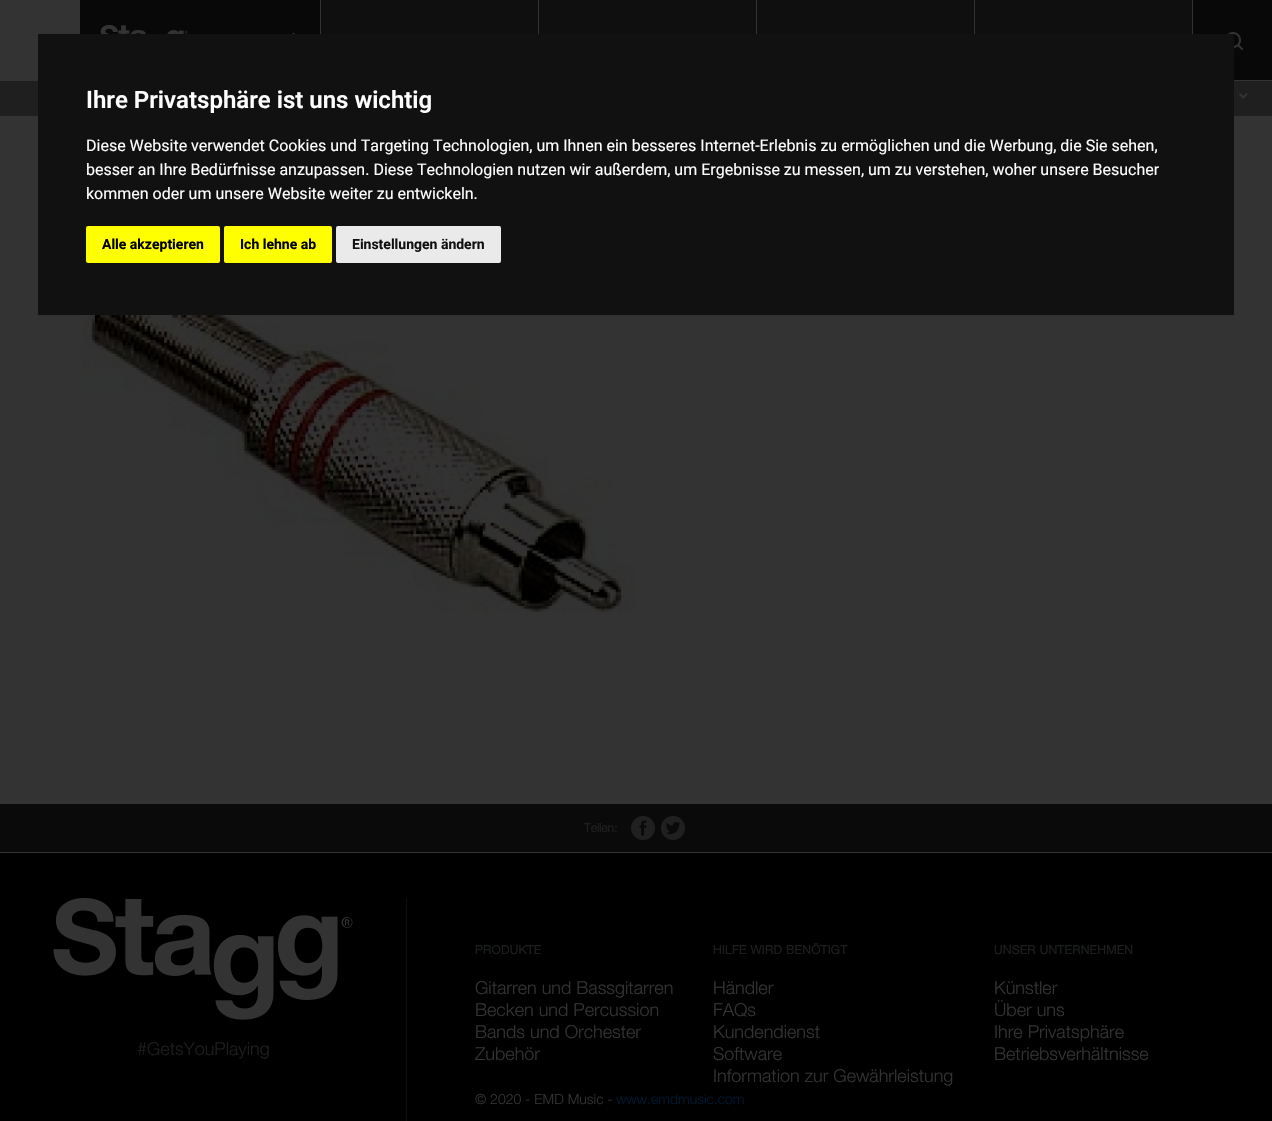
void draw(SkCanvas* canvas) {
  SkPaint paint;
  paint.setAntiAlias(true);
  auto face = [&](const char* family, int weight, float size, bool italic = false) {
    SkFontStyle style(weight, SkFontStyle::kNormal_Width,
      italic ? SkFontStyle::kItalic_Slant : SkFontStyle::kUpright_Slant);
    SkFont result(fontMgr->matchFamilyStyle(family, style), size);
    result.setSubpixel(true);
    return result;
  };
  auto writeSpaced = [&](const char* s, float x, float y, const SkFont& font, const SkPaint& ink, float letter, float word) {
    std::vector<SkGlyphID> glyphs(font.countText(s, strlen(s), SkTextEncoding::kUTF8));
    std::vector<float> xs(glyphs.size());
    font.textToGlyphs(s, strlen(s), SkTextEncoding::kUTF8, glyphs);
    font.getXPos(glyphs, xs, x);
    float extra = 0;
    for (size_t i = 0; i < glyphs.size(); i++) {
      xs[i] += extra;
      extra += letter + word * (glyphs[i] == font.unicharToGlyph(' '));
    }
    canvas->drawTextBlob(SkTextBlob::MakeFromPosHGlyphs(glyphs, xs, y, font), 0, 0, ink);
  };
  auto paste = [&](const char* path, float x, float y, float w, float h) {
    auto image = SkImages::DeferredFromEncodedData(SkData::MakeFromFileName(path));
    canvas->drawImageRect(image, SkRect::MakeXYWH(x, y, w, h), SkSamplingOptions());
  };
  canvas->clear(0xff333333);
  paint.setColor(0xff080808);
  canvas->drawRect(SkRect::MakeXYWH(80, 0, 240, 34), paint);
  paste("img/1.png", 100, 25, 88, 9);
  paste("img/2.png", 292, 33, 3, 1);
  {
    const struct { float x, y, w, h; SkColor color; } items[] = {
      {321, 0, 217, 34, 0xff0f0f0f},
      {539, 0, 217, 34, 0xff0f0f0f},
      {757, 0, 217, 34, 0xff0f0f0f},
      {975, 0, 217, 34, 0xff0f0f0f},
      {1193, 0, 79, 80, 0xff080808},
    };
    for (auto [x, y, w, h, color] : items) {
      paint.setColor(color);
      canvas->drawRect(SkRect::MakeXYWH(x, y, w, h), paint);
    }
  }
  paste("img/3.png", 1227, 32, 16, 18);
  paint.setColor(0xff1f1f1f);
  canvas->drawRect(SkRect::MakeXYWH(0, 81, 1272, 35), paint);
  paste("img/4.png", 1239, 93, 9, 6);
  paint.setColor(0xff111111);
  canvas->drawRect(SkRect::MakeXYWH(38, 34, 1196, 281), paint);
  paint.setColor(0xffffff00);
  canvas->drawRoundRect(SkRect::MakeXYWH(86, 226, 134, 37), 2, 2, paint);
  canvas->drawRoundRect(SkRect::MakeXYWH(224, 226, 108, 37), 2, 2, paint);
  paint.setColor(0xffeaeaea);
  canvas->drawRoundRect(SkRect::MakeXYWH(336, 226, 165, 37), 2, 2, paint);
  paste("img/5.png", 81, 315, 554, 299);
  paint.setColor(0xff0a0a0a);
  canvas->drawRect(SkRect::MakeXYWH(0, 804, 1272, 48), paint);
  paste("img/6.png", 631, 816, 24, 24);
  paste("img/7.png", 661, 816, 24, 24);
  paint.setColor(0xff000000);
  canvas->drawRect(SkRect::MakeXYWH(0, 853, 1272, 268), paint);
  paint.setColor(0xff0f0f0f);
  canvas->drawRect(SkRect::MakeXYWH(406, 898, 1, 223), paint);
  paste("img/8.png", 53, 898, 300, 122);
  auto f0 = face("Roboto", 600, 24);
  paint.setColor(0xffffffff);
  canvas->drawString("Ihre Privatsphäre ist uns wichtig", 86, 108, f0, paint);
  auto f1 = face("Roboto", 400, 16);
  {
    const struct { const char* s; float x, y; } items[] = {
      {"Diese Website verwendet Cookies und Targeting Technologien, um Ihnen ein besseres Internet-Erlebnis zu ermöglichen und die Werbung, die Sie sehen,", 86, 151},
      {"besser an Ihre Bedürfnisse anzupassen. Diese Technologien nutzen wir außerdem, um Ergebnisse zu messen, um zu verstehen, woher unsere Besucher", 86, 175},
      {"kommen oder um unsere Website weiter zu entwickeln.", 86, 199},
    };
    for (auto [s, x, y] : items) {
      canvas->drawString(s, x, y, f1, paint);
    }
  }
  auto f2 = face("Roboto", 700, 14);
  paint.setColor(0xff000000);
  canvas->drawString("Alle akzeptieren", 102, 249, f2, paint);
  canvas->drawString("Ich lehne ab", 240, 249, f2, paint);
  paint.setColor(0xff111111);
  canvas->drawString("Einstellungen ändern", 352, 249, f2, paint);
  auto f3 = face("Helvetica Neue", 700, 12);
  paint.setColor(0xff1d1e1e);
  canvas->drawString("Teilen:", 584, 832, f3, paint);
  auto f4 = face("Helvetica Neue", 300, 18);
  canvas->drawString("#GetsYouPlaying", 137, 1055, f4, paint);
  writeSpaced("PRODUKTE", 475, 954, f3, paint, 0.5f, 0);
  paint.setColor(0xff333333);
  {
    const struct { const char* s; float x, y; } items[] = {
      {"Gitarren und Bassgitarren", 475, 994},
      {"Becken und Percussion", 475, 1016},
      {"Bands und Orchester", 475, 1038},
      {"Zubehör", 475, 1060},
    };
    for (auto [s, x, y] : items) {
      canvas->drawString(s, x, y, f4, paint);
    }
  }
  paint.setColor(0xff1d1e1e);
  writeSpaced("HILFE WIRD BENÖTIGT", 713, 954, f3, paint, 0.5f, 0);
  paint.setColor(0xff333333);
  {
    const struct { const char* s; float x, y; } items[] = {
      {"Händler", 713, 994},
      {"FAQs", 713, 1016},
      {"Kundendienst", 713, 1038},
      {"Software", 713, 1060},
      {"Information zur Gewährleistung", 713, 1082},
    };
    for (auto [s, x, y] : items) {
      canvas->drawString(s, x, y, f4, paint);
    }
  }
  paint.setColor(0xff1d1e1e);
  writeSpaced("UNSER UNTERNEHMEN", 994, 954, f3, paint, 0.5f, 0);
  paint.setColor(0xff333333);
  {
    const struct { const char* s; float x, y; } items[] = {
      {"Künstler", 994, 994},
      {"Über uns", 994, 1016},
      {"Ihre Privatsphäre", 994, 1038},
      {"Betriebsverhältnisse", 994, 1060},
    };
    for (auto [s, x, y] : items) {
      canvas->drawString(s, x, y, f4, paint);
    }
  }
  auto f5 = face("Helvetica Neue", 300, 14);
  canvas->drawString("© 2020 - EMD Music -", 475, 1104, f5, paint);
  paint.setColor(0xff001a32);
  canvas->drawString("www.emdmusic.com", 616, 1104, f5, paint);
}
